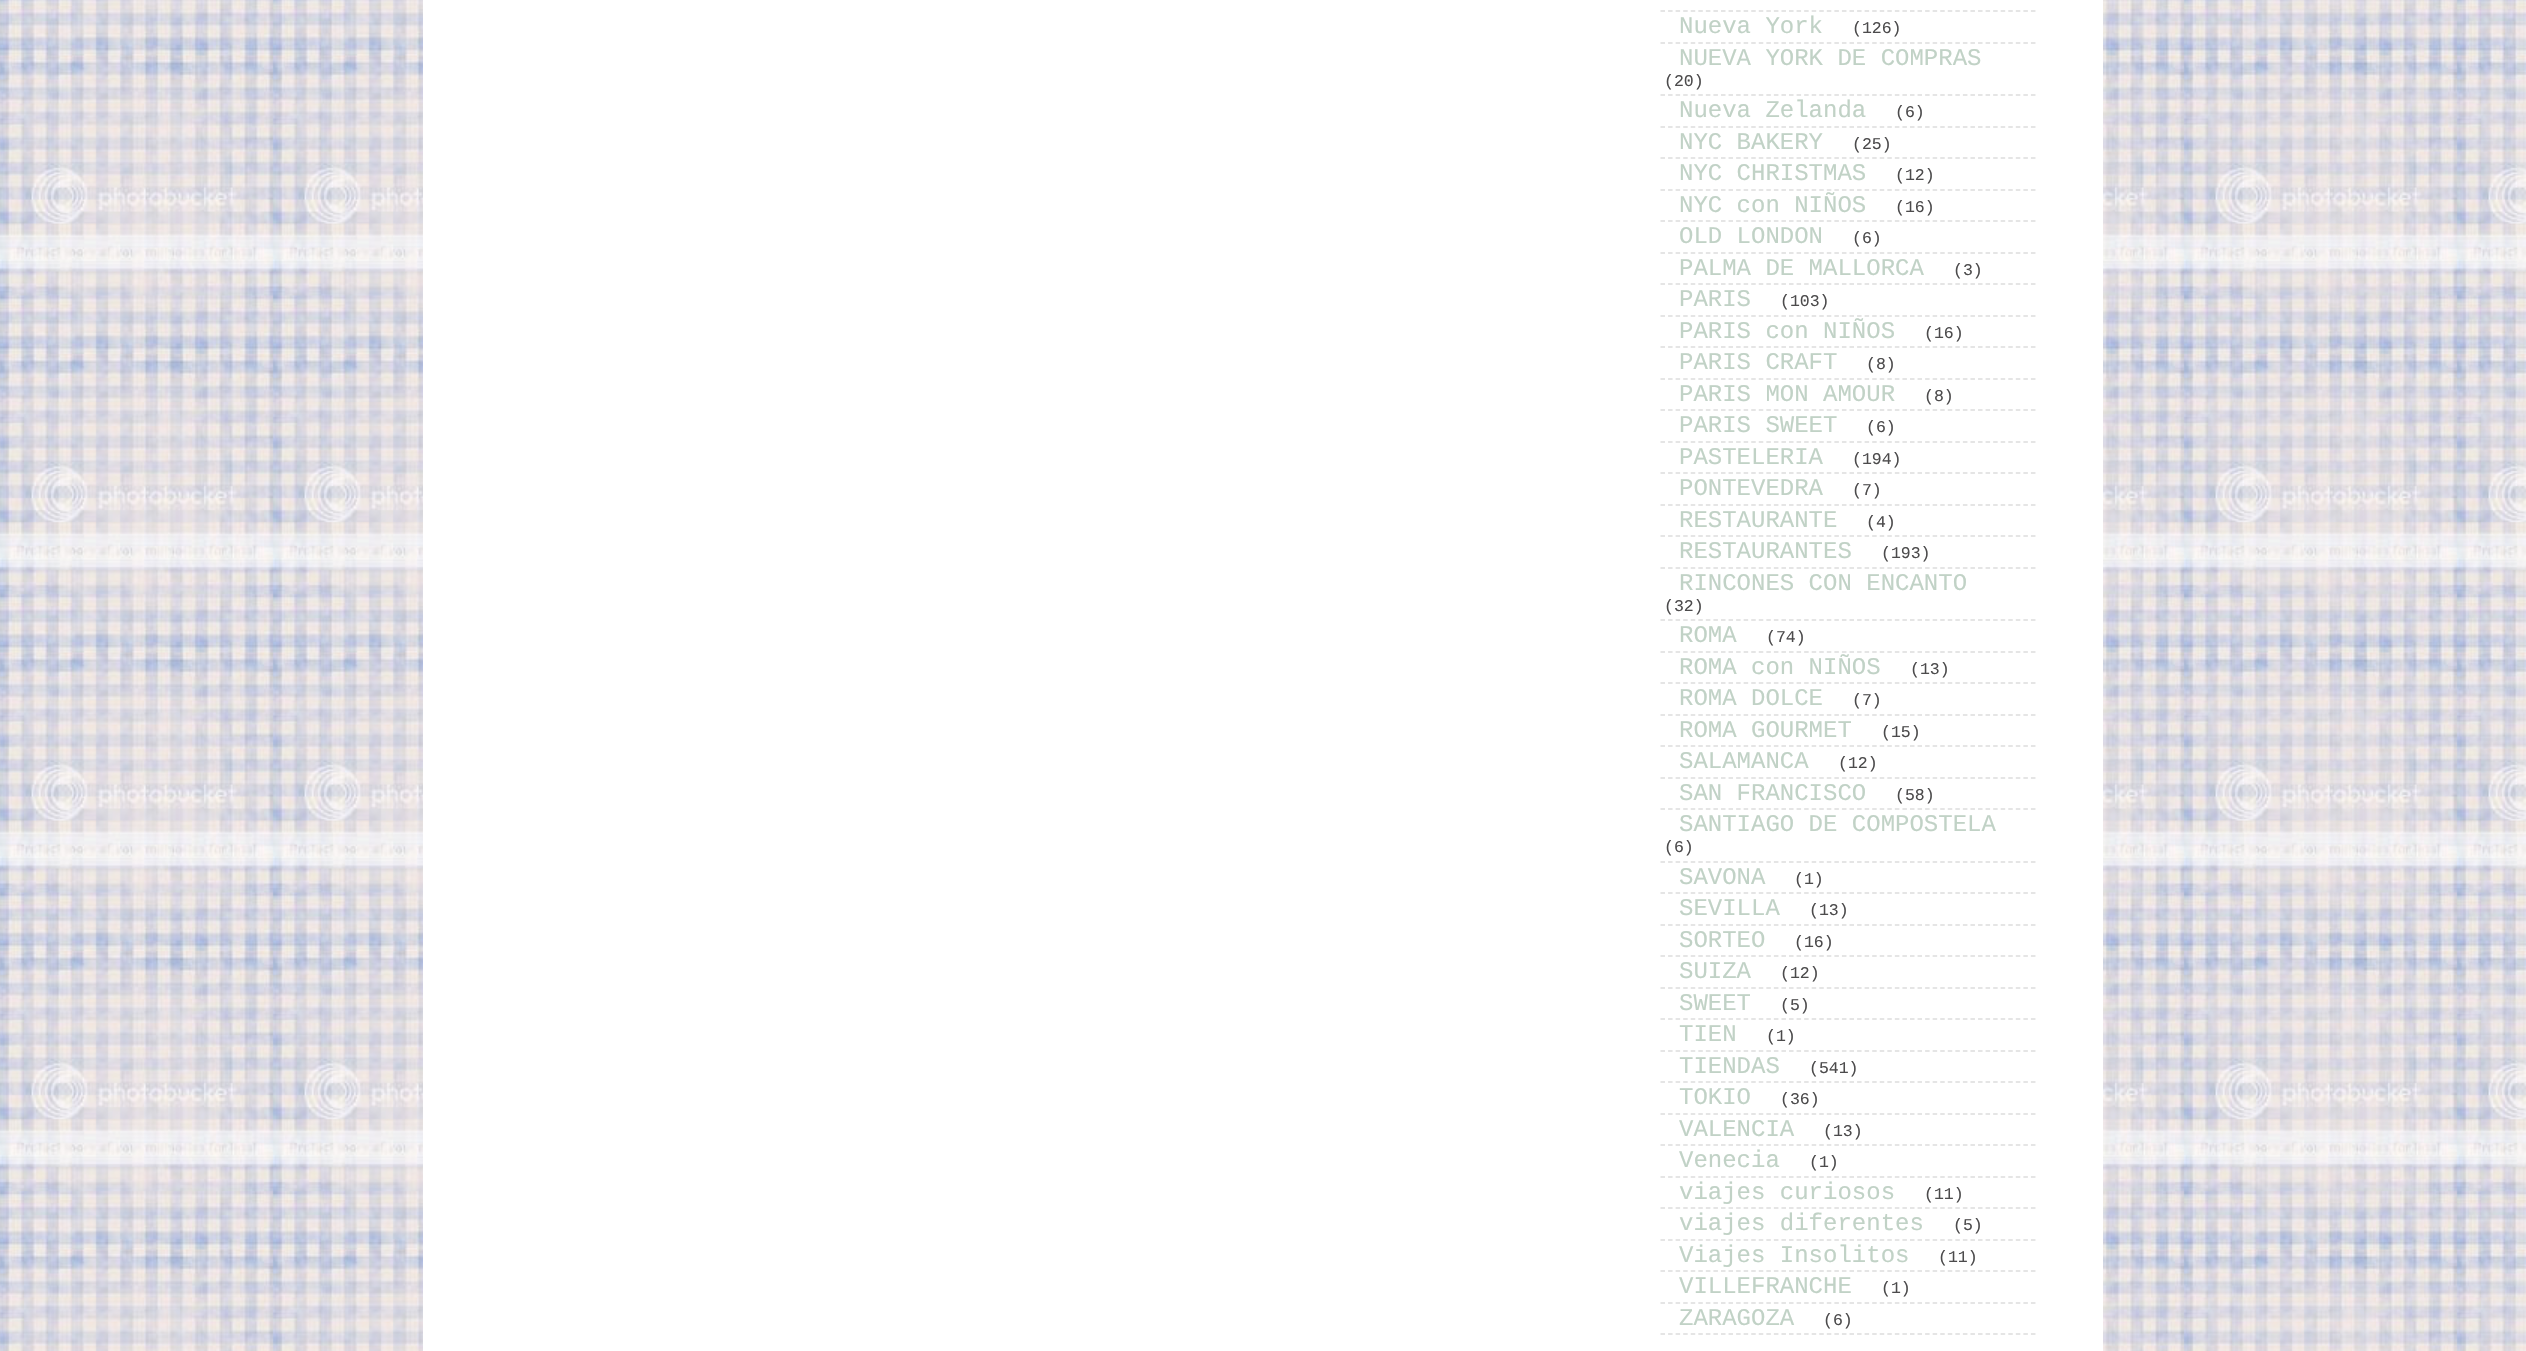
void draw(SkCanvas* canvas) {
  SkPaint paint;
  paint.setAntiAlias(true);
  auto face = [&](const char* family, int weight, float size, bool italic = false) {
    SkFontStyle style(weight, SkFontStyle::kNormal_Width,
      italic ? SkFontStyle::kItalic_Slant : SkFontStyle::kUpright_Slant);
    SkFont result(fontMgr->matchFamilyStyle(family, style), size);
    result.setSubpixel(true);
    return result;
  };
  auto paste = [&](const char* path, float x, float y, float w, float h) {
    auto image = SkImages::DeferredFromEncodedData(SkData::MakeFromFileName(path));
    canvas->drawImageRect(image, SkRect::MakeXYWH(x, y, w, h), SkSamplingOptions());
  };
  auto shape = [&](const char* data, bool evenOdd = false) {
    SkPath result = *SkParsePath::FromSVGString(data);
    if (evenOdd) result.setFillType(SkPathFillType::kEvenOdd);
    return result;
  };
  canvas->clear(0xffffffff);
  paste("img/1.png", 0, 0, 2526, 1351);
  paint.setColor(0xffffffff);
  canvas->drawRect(SkRect::MakeXYWH(423, 0, 1680, 1351), paint);
  paint.setStroke(true);
  paint.setStrokeWidth(1.5f);
  paint.setColor(0xffdddddd);
  paint.setPathEffect(SkDashPathEffect::Make({{4.5f, 3.06f}}, 0));
  canvas->drawPath(shape("M1660.5 11H2035.5"), paint);
  paint.setPathEffect(nullptr);
  paint.setPathEffect(SkDashPathEffect::Make({{4.5f, 3.06f}}, 0));
  canvas->drawPath(shape("M1660.5 43H2035.5"), paint);
  paint.setPathEffect(nullptr);
  paint.setPathEffect(SkDashPathEffect::Make({{4.5f, 3.06f}}, 0));
  canvas->drawPath(shape("M1660.5 95H2035.5"), paint);
  paint.setPathEffect(nullptr);
  paint.setPathEffect(SkDashPathEffect::Make({{4.5f, 3.06f}}, 0));
  canvas->drawPath(shape("M1660.5 127H2035.5"), paint);
  paint.setPathEffect(nullptr);
  paint.setPathEffect(SkDashPathEffect::Make({{4.5f, 3.06f}}, 0));
  canvas->drawPath(shape("M1660.5 158H2035.5"), paint);
  paint.setPathEffect(nullptr);
  paint.setPathEffect(SkDashPathEffect::Make({{4.5f, 3.06f}}, 0));
  canvas->drawPath(shape("M1660.5 190H2035.5"), paint);
  paint.setPathEffect(nullptr);
  paint.setPathEffect(SkDashPathEffect::Make({{4.5f, 3.06f}}, 0));
  canvas->drawPath(shape("M1660.5 221H2035.5"), paint);
  paint.setPathEffect(nullptr);
  paint.setPathEffect(SkDashPathEffect::Make({{4.5f, 3.06f}}, 0));
  canvas->drawPath(shape("M1660.5 253H2035.5"), paint);
  paint.setPathEffect(nullptr);
  paint.setPathEffect(SkDashPathEffect::Make({{4.5f, 3.06f}}, 0));
  canvas->drawPath(shape("M1660.5 284H2035.5"), paint);
  paint.setPathEffect(nullptr);
  paint.setPathEffect(SkDashPathEffect::Make({{4.5f, 3.06f}}, 0));
  canvas->drawPath(shape("M1660.5 316H2035.5"), paint);
  paint.setPathEffect(nullptr);
  paint.setPathEffect(SkDashPathEffect::Make({{4.5f, 3.06f}}, 0));
  canvas->drawPath(shape("M1660.5 347H2035.5"), paint);
  paint.setPathEffect(nullptr);
  paint.setPathEffect(SkDashPathEffect::Make({{4.5f, 3.06f}}, 0));
  canvas->drawPath(shape("M1660.5 379H2035.5"), paint);
  paint.setPathEffect(nullptr);
  paint.setPathEffect(SkDashPathEffect::Make({{4.5f, 3.06f}}, 0));
  canvas->drawPath(shape("M1660.5 410H2035.5"), paint);
  paint.setPathEffect(nullptr);
  paint.setPathEffect(SkDashPathEffect::Make({{4.5f, 3.06f}}, 0));
  canvas->drawPath(shape("M1660.5 442H2035.5"), paint);
  paint.setPathEffect(nullptr);
  paint.setPathEffect(SkDashPathEffect::Make({{4.5f, 3.06f}}, 0));
  canvas->drawPath(shape("M1660.5 473H2035.5"), paint);
  paint.setPathEffect(nullptr);
  paint.setPathEffect(SkDashPathEffect::Make({{4.5f, 3.06f}}, 0));
  canvas->drawPath(shape("M1660.5 505H2035.5"), paint);
  paint.setPathEffect(nullptr);
  paint.setPathEffect(SkDashPathEffect::Make({{4.5f, 3.06f}}, 0));
  canvas->drawPath(shape("M1660.5 536H2035.5"), paint);
  paint.setPathEffect(nullptr);
  paint.setPathEffect(SkDashPathEffect::Make({{4.5f, 3.06f}}, 0));
  canvas->drawPath(shape("M1660.5 568H2035.5"), paint);
  paint.setPathEffect(nullptr);
  paint.setPathEffect(SkDashPathEffect::Make({{4.5f, 3.06f}}, 0));
  canvas->drawPath(shape("M1660.5 620H2035.5"), paint);
  paint.setPathEffect(nullptr);
  paint.setPathEffect(SkDashPathEffect::Make({{4.5f, 3.06f}}, 0));
  canvas->drawPath(shape("M1660.5 652H2035.5"), paint);
  paint.setPathEffect(nullptr);
  paint.setPathEffect(SkDashPathEffect::Make({{4.5f, 3.06f}}, 0));
  canvas->drawPath(shape("M1660.5 683H2035.5"), paint);
  paint.setPathEffect(nullptr);
  paint.setPathEffect(SkDashPathEffect::Make({{4.5f, 3.06f}}, 0));
  canvas->drawPath(shape("M1660.5 715H2035.5"), paint);
  paint.setPathEffect(nullptr);
  paint.setPathEffect(SkDashPathEffect::Make({{4.5f, 3.06f}}, 0));
  canvas->drawPath(shape("M1660.5 746H2035.5"), paint);
  paint.setPathEffect(nullptr);
  paint.setPathEffect(SkDashPathEffect::Make({{4.5f, 3.06f}}, 0));
  canvas->drawPath(shape("M1660.5 778H2035.5"), paint);
  paint.setPathEffect(nullptr);
  paint.setPathEffect(SkDashPathEffect::Make({{4.5f, 3.06f}}, 0));
  canvas->drawPath(shape("M1660.5 809H2035.5"), paint);
  paint.setPathEffect(nullptr);
  paint.setPathEffect(SkDashPathEffect::Make({{4.5f, 3.06f}}, 0));
  canvas->drawPath(shape("M1660.5 862H2035.5"), paint);
  paint.setPathEffect(nullptr);
  paint.setPathEffect(SkDashPathEffect::Make({{4.5f, 3.06f}}, 0));
  canvas->drawPath(shape("M1660.5 893H2035.5"), paint);
  paint.setPathEffect(nullptr);
  paint.setPathEffect(SkDashPathEffect::Make({{4.5f, 3.06f}}, 0));
  canvas->drawPath(shape("M1660.5 925H2035.5"), paint);
  paint.setPathEffect(nullptr);
  paint.setPathEffect(SkDashPathEffect::Make({{4.5f, 3.06f}}, 0));
  canvas->drawPath(shape("M1660.5 956H2035.5"), paint);
  paint.setPathEffect(nullptr);
  paint.setPathEffect(SkDashPathEffect::Make({{4.5f, 3.06f}}, 0));
  canvas->drawPath(shape("M1660.5 988H2035.5"), paint);
  paint.setPathEffect(nullptr);
  paint.setPathEffect(SkDashPathEffect::Make({{4.5f, 3.06f}}, 0));
  canvas->drawPath(shape("M1660.5 1019H2035.5"), paint);
  paint.setPathEffect(nullptr);
  paint.setPathEffect(SkDashPathEffect::Make({{4.5f, 3.06f}}, 0));
  canvas->drawPath(shape("M1660.5 1051H2035.5"), paint);
  paint.setPathEffect(nullptr);
  paint.setPathEffect(SkDashPathEffect::Make({{4.5f, 3.06f}}, 0));
  canvas->drawPath(shape("M1660.5 1082H2035.5"), paint);
  paint.setPathEffect(nullptr);
  paint.setPathEffect(SkDashPathEffect::Make({{4.5f, 3.06f}}, 0));
  canvas->drawPath(shape("M1660.5 1114H2035.5"), paint);
  paint.setPathEffect(nullptr);
  paint.setPathEffect(SkDashPathEffect::Make({{4.5f, 3.06f}}, 0));
  canvas->drawPath(shape("M1660.5 1145H2035.5"), paint);
  paint.setPathEffect(nullptr);
  paint.setPathEffect(SkDashPathEffect::Make({{4.5f, 3.06f}}, 0));
  canvas->drawPath(shape("M1660.5 1177H2035.5"), paint);
  paint.setPathEffect(nullptr);
  paint.setPathEffect(SkDashPathEffect::Make({{4.5f, 3.06f}}, 0));
  canvas->drawPath(shape("M1660.5 1208H2035.5"), paint);
  paint.setPathEffect(nullptr);
  paint.setPathEffect(SkDashPathEffect::Make({{4.5f, 3.06f}}, 0));
  canvas->drawPath(shape("M1660.5 1240H2035.5"), paint);
  paint.setPathEffect(nullptr);
  paint.setPathEffect(SkDashPathEffect::Make({{4.5f, 3.06f}}, 0));
  canvas->drawPath(shape("M1660.5 1271H2035.5"), paint);
  paint.setPathEffect(nullptr);
  paint.setPathEffect(SkDashPathEffect::Make({{4.5f, 3.06f}}, 0));
  canvas->drawPath(shape("M1660.5 1303H2035.5"), paint);
  paint.setPathEffect(nullptr);
  paint.setPathEffect(SkDashPathEffect::Make({{4.5f, 3.06f}}, 0));
  canvas->drawPath(shape("M1660.5 1334H2035.5"), paint);
  paint.setPathEffect(nullptr);
  auto f0 = face("Liberation Mono", 400, 24);
  paint.setStroke(false);
  paint.setColor(0xffc1d2c6);
  canvas->drawString("Nueva York", 1679, 33, f0, paint);
  auto f1 = face("Liberation Mono", 400, 16.5f);
  paint.setColor(0xff4c4b4c);
  canvas->drawString("(126)", 1852, 33, f1, paint);
  paint.setColor(0xffc1d2c6);
  canvas->drawString("NUEVA YORK DE COMPRAS", 1679, 65, f0, paint);
  paint.setColor(0xff4c4b4c);
  canvas->drawString("(20)", 1664, 86, f1, paint);
  paint.setColor(0xffc1d2c6);
  canvas->drawString("Nueva Zelanda", 1679, 117, f0, paint);
  paint.setColor(0xff4c4b4c);
  canvas->drawString("(6)", 1895, 117, f1, paint);
  paint.setColor(0xffc1d2c6);
  canvas->drawString("NYC BAKERY", 1679, 149, f0, paint);
  paint.setColor(0xff4c4b4c);
  canvas->drawString("(25)", 1852, 149, f1, paint);
  paint.setColor(0xffc1d2c6);
  canvas->drawString("NYC CHRISTMAS", 1679, 180, f0, paint);
  paint.setColor(0xff4c4b4c);
  canvas->drawString("(12)", 1895, 180, f1, paint);
  paint.setColor(0xffc1d2c6);
  canvas->drawString("NYC con NIÑOS", 1679, 212, f0, paint);
  paint.setColor(0xff4c4b4c);
  canvas->drawString("(16)", 1895, 212, f1, paint);
  paint.setColor(0xffc1d2c6);
  canvas->drawString("OLD LONDON", 1679, 243, f0, paint);
  paint.setColor(0xff4c4b4c);
  canvas->drawString("(6)", 1852, 243, f1, paint);
  paint.setColor(0xffc1d2c6);
  canvas->drawString("PALMA DE MALLORCA", 1679, 275, f0, paint);
  paint.setColor(0xff4c4b4c);
  canvas->drawString("(3)", 1953, 275, f1, paint);
  paint.setColor(0xffc1d2c6);
  canvas->drawString("PARIS", 1679, 306, f0, paint);
  paint.setColor(0xff4c4b4c);
  canvas->drawString("(103)", 1780, 306, f1, paint);
  paint.setColor(0xffc1d2c6);
  canvas->drawString("PARIS con NIÑOS", 1679, 338, f0, paint);
  paint.setColor(0xff4c4b4c);
  canvas->drawString("(16)", 1924, 338, f1, paint);
  paint.setColor(0xffc1d2c6);
  canvas->drawString("PARIS CRAFT", 1679, 369, f0, paint);
  paint.setColor(0xff4c4b4c);
  canvas->drawString("(8)", 1866, 369, f1, paint);
  paint.setColor(0xffc1d2c6);
  canvas->drawString("PARIS MON AMOUR", 1679, 401, f0, paint);
  paint.setColor(0xff4c4b4c);
  canvas->drawString("(8)", 1924, 401, f1, paint);
  paint.setColor(0xffc1d2c6);
  canvas->drawString("PARIS SWEET", 1679, 432, f0, paint);
  paint.setColor(0xff4c4b4c);
  canvas->drawString("(6)", 1866, 432, f1, paint);
  paint.setColor(0xffc1d2c6);
  canvas->drawString("PASTELERIA", 1679, 464, f0, paint);
  paint.setColor(0xff4c4b4c);
  canvas->drawString("(194)", 1852, 464, f1, paint);
  paint.setColor(0xffc1d2c6);
  canvas->drawString("PONTEVEDRA", 1679, 495, f0, paint);
  paint.setColor(0xff4c4b4c);
  canvas->drawString("(7)", 1852, 495, f1, paint);
  paint.setColor(0xffc1d2c6);
  canvas->drawString("RESTAURANTE", 1679, 527, f0, paint);
  paint.setColor(0xff4c4b4c);
  canvas->drawString("(4)", 1866, 527, f1, paint);
  paint.setColor(0xffc1d2c6);
  canvas->drawString("RESTAURANTES", 1679, 558, f0, paint);
  paint.setColor(0xff4c4b4c);
  canvas->drawString("(193)", 1881, 558, f1, paint);
  paint.setColor(0xffc1d2c6);
  canvas->drawString("RINCONES CON ENCANTO", 1679, 590, f0, paint);
  paint.setColor(0xff4c4b4c);
  canvas->drawString("(32)", 1664, 611, f1, paint);
  paint.setColor(0xffc1d2c6);
  canvas->drawString("ROMA", 1679, 642, f0, paint);
  paint.setColor(0xff4c4b4c);
  canvas->drawString("(74)", 1766, 642, f1, paint);
  paint.setColor(0xffc1d2c6);
  canvas->drawString("ROMA con NIÑOS", 1679, 674, f0, paint);
  paint.setColor(0xff4c4b4c);
  canvas->drawString("(13)", 1910, 674, f1, paint);
  paint.setColor(0xffc1d2c6);
  canvas->drawString("ROMA DOLCE", 1679, 705, f0, paint);
  paint.setColor(0xff4c4b4c);
  canvas->drawString("(7)", 1852, 705, f1, paint);
  paint.setColor(0xffc1d2c6);
  canvas->drawString("ROMA GOURMET", 1679, 737, f0, paint);
  paint.setColor(0xff4c4b4c);
  canvas->drawString("(15)", 1881, 737, f1, paint);
  paint.setColor(0xffc1d2c6);
  canvas->drawString("SALAMANCA", 1679, 768, f0, paint);
  paint.setColor(0xff4c4b4c);
  canvas->drawString("(12)", 1838, 768, f1, paint);
  paint.setColor(0xffc1d2c6);
  canvas->drawString("SAN FRANCISCO", 1679, 800, f0, paint);
  paint.setColor(0xff4c4b4c);
  canvas->drawString("(58)", 1895, 800, f1, paint);
  paint.setColor(0xffc1d2c6);
  canvas->drawString("SANTIAGO DE COMPOSTELA", 1679, 831, f0, paint);
  paint.setColor(0xff4c4b4c);
  canvas->drawString("(6)", 1664, 852, f1, paint);
  paint.setColor(0xffc1d2c6);
  canvas->drawString("SAVONA", 1679, 884, f0, paint);
  paint.setColor(0xff4c4b4c);
  canvas->drawString("(1)", 1794, 884, f1, paint);
  paint.setColor(0xffc1d2c6);
  canvas->drawString("SEVILLA", 1679, 915, f0, paint);
  paint.setColor(0xff4c4b4c);
  canvas->drawString("(13)", 1809, 915, f1, paint);
  paint.setColor(0xffc1d2c6);
  canvas->drawString("SORTEO", 1679, 947, f0, paint);
  paint.setColor(0xff4c4b4c);
  canvas->drawString("(16)", 1794, 947, f1, paint);
  paint.setColor(0xffc1d2c6);
  canvas->drawString("SUIZA", 1679, 978, f0, paint);
  paint.setColor(0xff4c4b4c);
  canvas->drawString("(12)", 1780, 978, f1, paint);
  paint.setColor(0xffc1d2c6);
  canvas->drawString("SWEET", 1679, 1010, f0, paint);
  paint.setColor(0xff4c4b4c);
  canvas->drawString("(5)", 1780, 1010, f1, paint);
  paint.setColor(0xffc1d2c6);
  canvas->drawString("TIEN", 1679, 1041, f0, paint);
  paint.setColor(0xff4c4b4c);
  canvas->drawString("(1)", 1766, 1041, f1, paint);
  paint.setColor(0xffc1d2c6);
  canvas->drawString("TIENDAS", 1679, 1073, f0, paint);
  paint.setColor(0xff4c4b4c);
  canvas->drawString("(541)", 1809, 1073, f1, paint);
  paint.setColor(0xffc1d2c6);
  canvas->drawString("TOKIO", 1679, 1104, f0, paint);
  paint.setColor(0xff4c4b4c);
  canvas->drawString("(36)", 1780, 1104, f1, paint);
  paint.setColor(0xffc1d2c6);
  canvas->drawString("VALENCIA", 1679, 1136, f0, paint);
  paint.setColor(0xff4c4b4c);
  canvas->drawString("(13)", 1823, 1136, f1, paint);
  paint.setColor(0xffc1d2c6);
  canvas->drawString("Venecia", 1679, 1167, f0, paint);
  paint.setColor(0xff4c4b4c);
  canvas->drawString("(1)", 1809, 1167, f1, paint);
  paint.setColor(0xffc1d2c6);
  canvas->drawString("viajes curiosos", 1679, 1199, f0, paint);
  paint.setColor(0xff4c4b4c);
  canvas->drawString("(11)", 1924, 1199, f1, paint);
  paint.setColor(0xffc1d2c6);
  canvas->drawString("viajes diferentes", 1679, 1230, f0, paint);
  paint.setColor(0xff4c4b4c);
  canvas->drawString("(5)", 1953, 1230, f1, paint);
  paint.setColor(0xffc1d2c6);
  canvas->drawString("Viajes Insolitos", 1679, 1262, f0, paint);
  paint.setColor(0xff4c4b4c);
  canvas->drawString("(11)", 1938, 1262, f1, paint);
  paint.setColor(0xffc1d2c6);
  canvas->drawString("VILLEFRANCHE", 1679, 1293, f0, paint);
  paint.setColor(0xff4c4b4c);
  canvas->drawString("(1)", 1881, 1293, f1, paint);
  paint.setColor(0xffc1d2c6);
  canvas->drawString("ZARAGOZA", 1679, 1325, f0, paint);
  paint.setColor(0xff4c4b4c);
  canvas->drawString("(6)", 1823, 1325, f1, paint);
}
